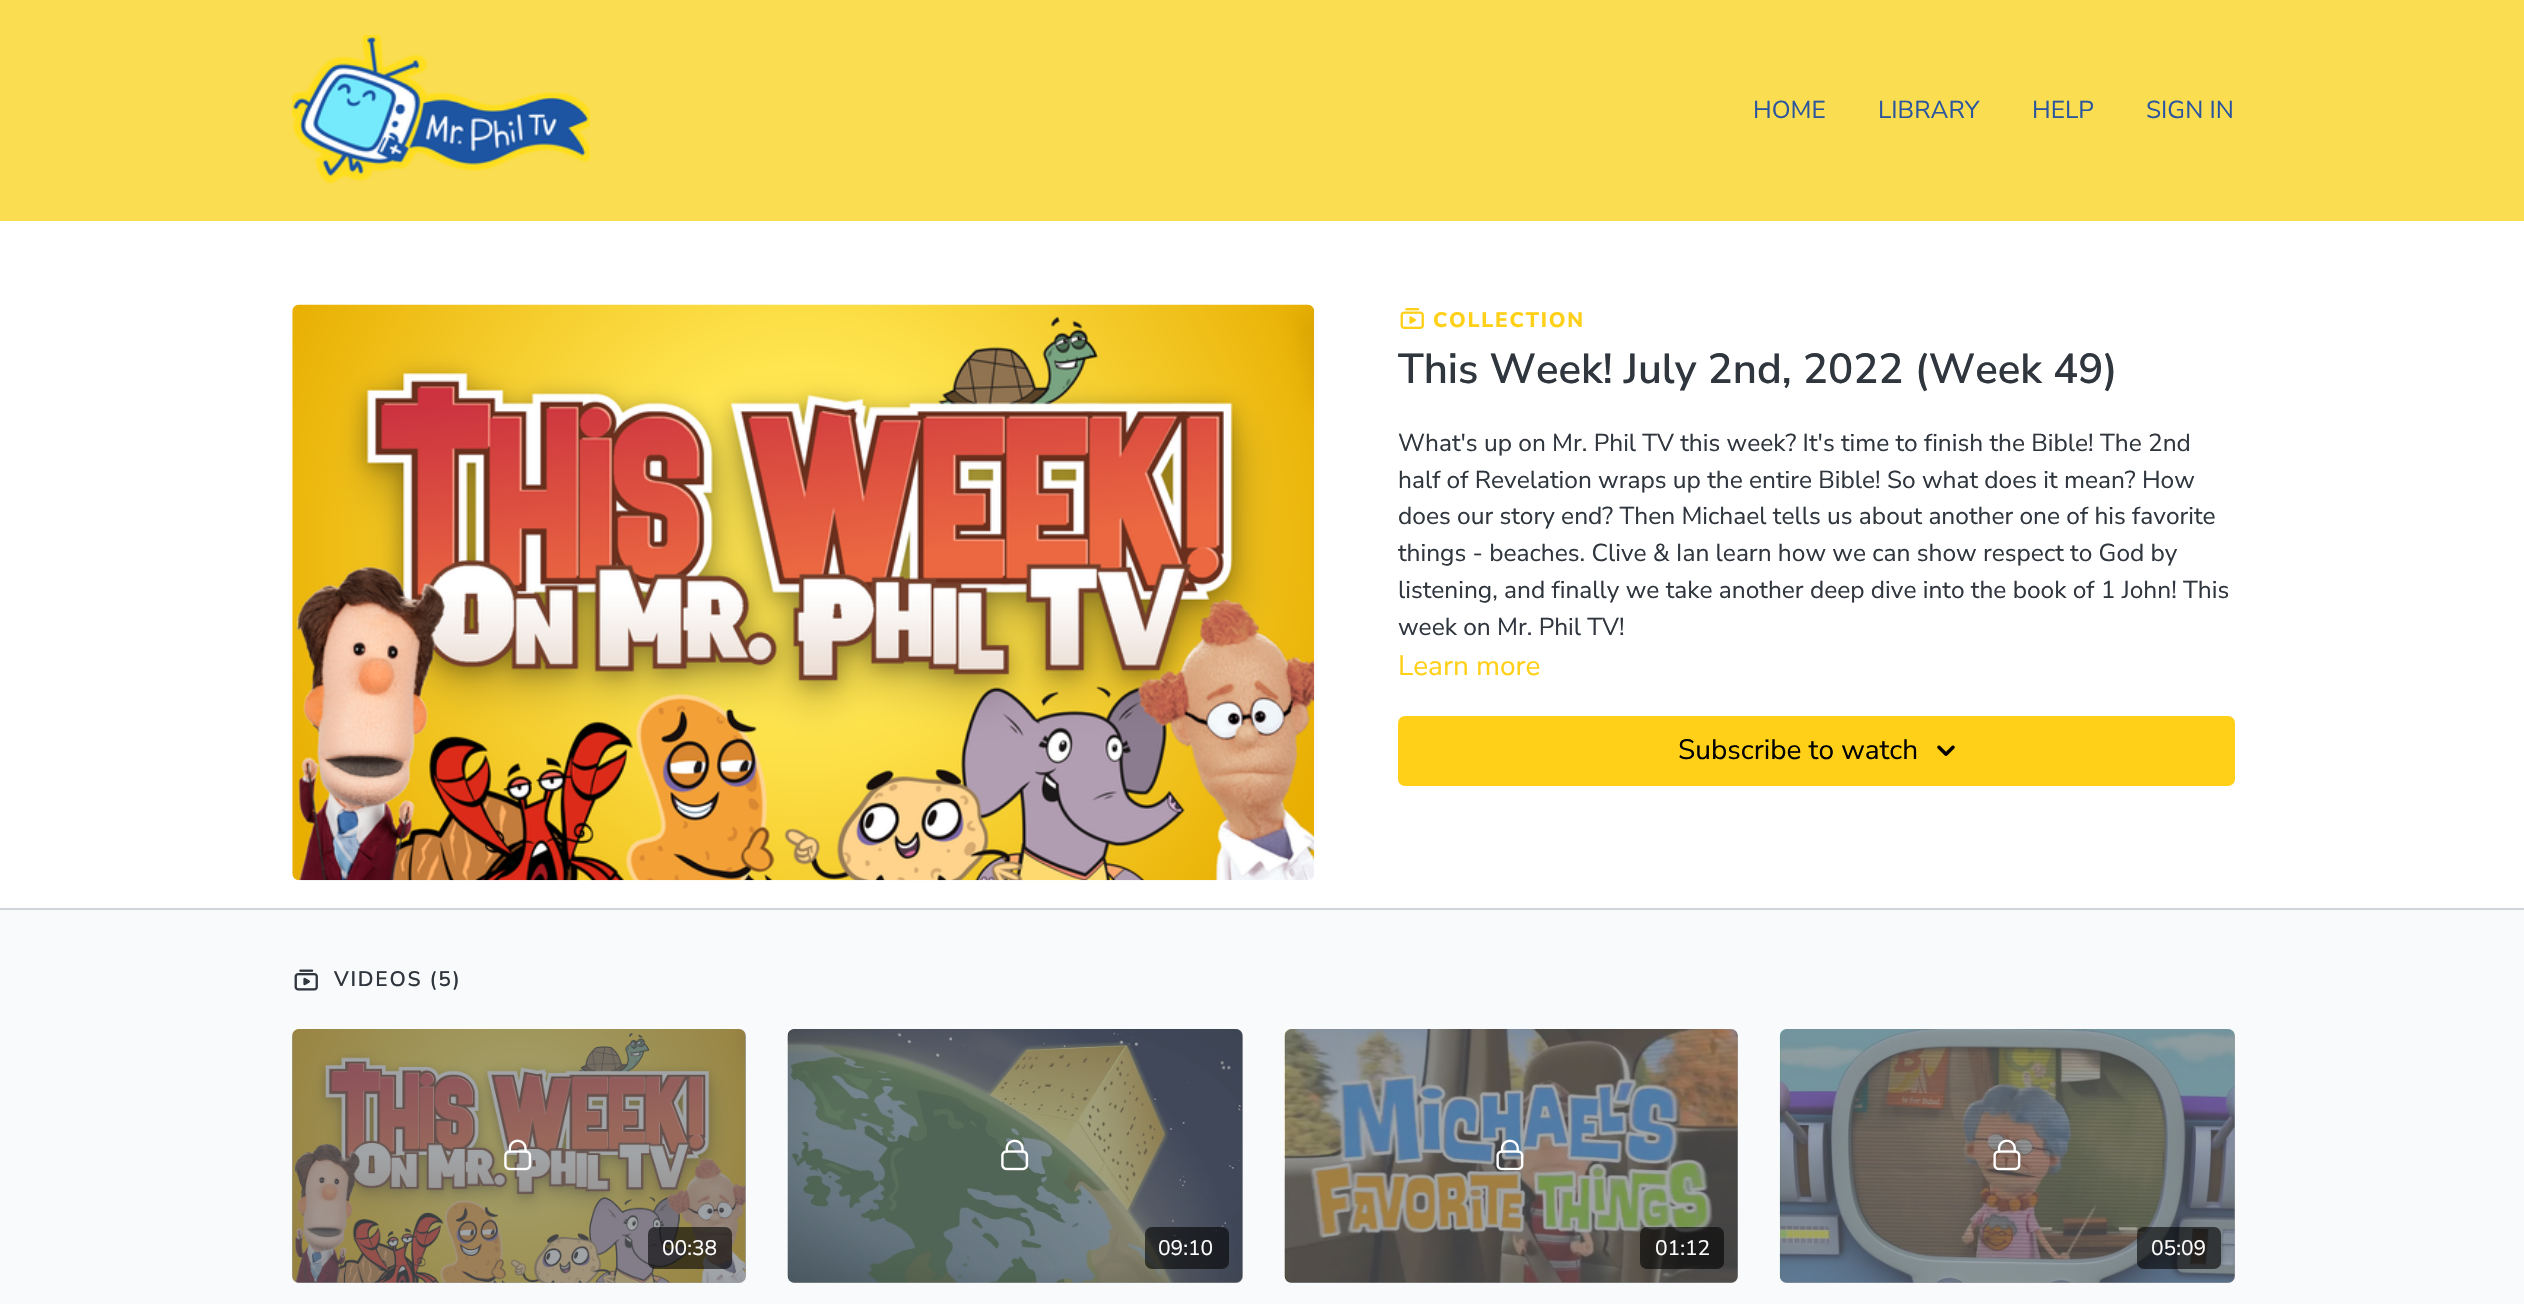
void draw(SkCanvas* canvas) {
  SkPaint paint;
  paint.setAntiAlias(true);
  auto face = [&](const char* family, int weight, float size, bool italic = false) {
    SkFontStyle style(weight, SkFontStyle::kNormal_Width,
      italic ? SkFontStyle::kItalic_Slant : SkFontStyle::kUpright_Slant);
    SkFont result(fontMgr->matchFamilyStyle(family, style), size);
    result.setSubpixel(true);
    return result;
  };
  auto writeSpaced = [&](const char* s, float x, float y, const SkFont& font, const SkPaint& ink, float letter, float word) {
    std::vector<SkGlyphID> glyphs(font.countText(s, strlen(s), SkTextEncoding::kUTF8));
    std::vector<float> xs(glyphs.size());
    font.textToGlyphs(s, strlen(s), SkTextEncoding::kUTF8, glyphs);
    font.getXPos(glyphs, xs, x);
    float extra = 0;
    for (size_t i = 0; i < glyphs.size(); i++) {
      xs[i] += extra;
      extra += letter + word * (glyphs[i] == font.unicharToGlyph(' '));
    }
    canvas->drawTextBlob(SkTextBlob::MakeFromPosHGlyphs(glyphs, xs, y, font), 0, 0, ink);
  };
  auto paste = [&](const char* path, float x, float y, float w, float h) {
    auto image = SkImages::DeferredFromEncodedData(SkData::MakeFromFileName(path));
    canvas->drawImageRect(image, SkRect::MakeXYWH(x, y, w, h), SkSamplingOptions());
  };
  canvas->clear(0xffffffff);
  paint.setColor(0xfffadd51);
  canvas->drawRect(SkRect::MakeXYWH(0, 0, 2524, 221), paint);
  paste("img/1.png", 292, 35, 298, 149);
  paste("img/2.png", 292, 304, 1023, 577);
  paste("img/3.png", 1400, 308, 24, 21);
  paint.setColor(0xffffd017);
  canvas->drawRoundRect(SkRect::MakeXYWH(1398, 716, 837, 70), 7, 7, paint);
  paste("img/4.png", 1937, 745, 18, 11);
  paint.setColor(0xfff9fafb);
  canvas->drawRect(SkRect::MakeXYWH(0, 910, 2524, 394), paint);
  paint.setColor(0xffd1d5db);
  canvas->drawRect(SkRect::MakeXYWH(0, 908, 2524, 2), paint);
  paste("img/5.png", 294, 969, 24, 22);
  paste("img/6.png", 292, 1029, 454, 254);
  paint.setColor(0x9962676d);
  canvas->drawRoundRect(SkRect::MakeXYWH(292, 1029, 454, 254), 7, 7, paint);
  paste("img/7.png", 504, 1139, 28, 32);
  paint.setColor(0x99000000);
  canvas->drawRoundRect(SkRect::MakeXYWH(648, 1227, 84, 42), 7, 7, paint);
  paste("img/8.png", 787, 1029, 456, 254);
  paint.setColor(0x9962676d);
  canvas->drawRoundRect(SkRect::MakeXYWH(788, 1029, 455, 254), 7, 7, paint);
  paste("img/9.png", 1001, 1139, 28, 32);
  paint.setColor(0x99000000);
  canvas->drawRoundRect(SkRect::MakeXYWH(1145, 1227, 84, 42), 7, 7, paint);
  paste("img/10.png", 1284, 1029, 454, 254);
  paint.setColor(0x9962676d);
  canvas->drawRoundRect(SkRect::MakeXYWH(1285, 1029, 453, 254), 7, 7, paint);
  paste("img/11.png", 1496, 1139, 28, 32);
  paint.setColor(0x99000000);
  canvas->drawRoundRect(SkRect::MakeXYWH(1640, 1227, 84, 42), 7, 7, paint);
  paste("img/12.png", 1779, 1029, 456, 254);
  paint.setColor(0x9962676d);
  canvas->drawRoundRect(SkRect::MakeXYWH(1780, 1029, 455, 254), 7, 7, paint);
  paste("img/13.png", 1993, 1139, 28, 32);
  paint.setColor(0x99000000);
  canvas->drawRoundRect(SkRect::MakeXYWH(2137, 1227, 84, 42), 7, 7, paint);
  auto f0 = face("Nunito Sans", 400, 24.5f);
  paint.setColor(0xff2b569e);
  {
    const struct { const char* s; float x, y; } items[] = {
      {"HOME", 1753, 118},
      {"LIBRARY", 1878, 118},
      {"HELP", 2032, 118},
      {"SIGN IN", 2146, 118},
    };
    for (auto [s, x, y] : items) {
      canvas->drawString(s, x, y, f0, paint);
    }
  }
  auto f1 = face("Nunito Sans", 800, 21);
  paint.setColor(0xffffd017);
  writeSpaced("COLLECTION", 1433, 327, f1, paint, 1.75f, 0);
  auto f2 = face("Nunito Sans", 600, 42);
  paint.setColor(0xff30363e);
  canvas->drawString("This Week! July 2nd, 2022 (Week 49)", 1398, 383, f2, paint);
  {
    const struct { const char* s; float x, y; } items[] = {
      {"What's up on Mr. Phil TV this week? It's time to finish the Bible! The 2nd", 1398, 451},
      {"half of Revelation wraps up the entire Bible! So what does it mean? How", 1398, 488},
      {"does our story end? Then Michael tells us about another one of his favorite", 1398, 524},
      {"things - beaches. Clive & Ian learn how we can show respect to God by", 1398, 561},
      {"listening, and finally we take another deep dive into the book of 1 John! This", 1398, 598},
      {"week on Mr. Phil TV!", 1398, 635},
    };
    for (auto [s, x, y] : items) {
      canvas->drawString(s, x, y, f0, paint);
    }
  }
  auto f3 = face("Nunito Sans", 400, 28);
  paint.setColor(0xffffd017);
  canvas->drawString("Learn more", 1398, 675, f3, paint);
  paint.setColor(0xff000000);
  canvas->drawString("Subscribe to watch", 1678, 759, f3, paint);
  auto f4 = face("Nunito Sans", 600, 21);
  paint.setColor(0xff30363e);
  writeSpaced("VIDEOS (5)", 334, 986, f4, paint, 1.75f, 0);
  auto f5 = face("Nunito Sans", 400, 21);
  paint.setColor(0xffffffff);
  {
    const struct { const char* s; float x, y; } items[] = {
      {"00:38", 662, 1255},
      {"09:10", 1158, 1255},
      {"01:12", 1655, 1255},
      {"05:09", 2151, 1255},
    };
    for (auto [s, x, y] : items) {
      canvas->drawString(s, x, y, f5, paint);
    }
  }
}
